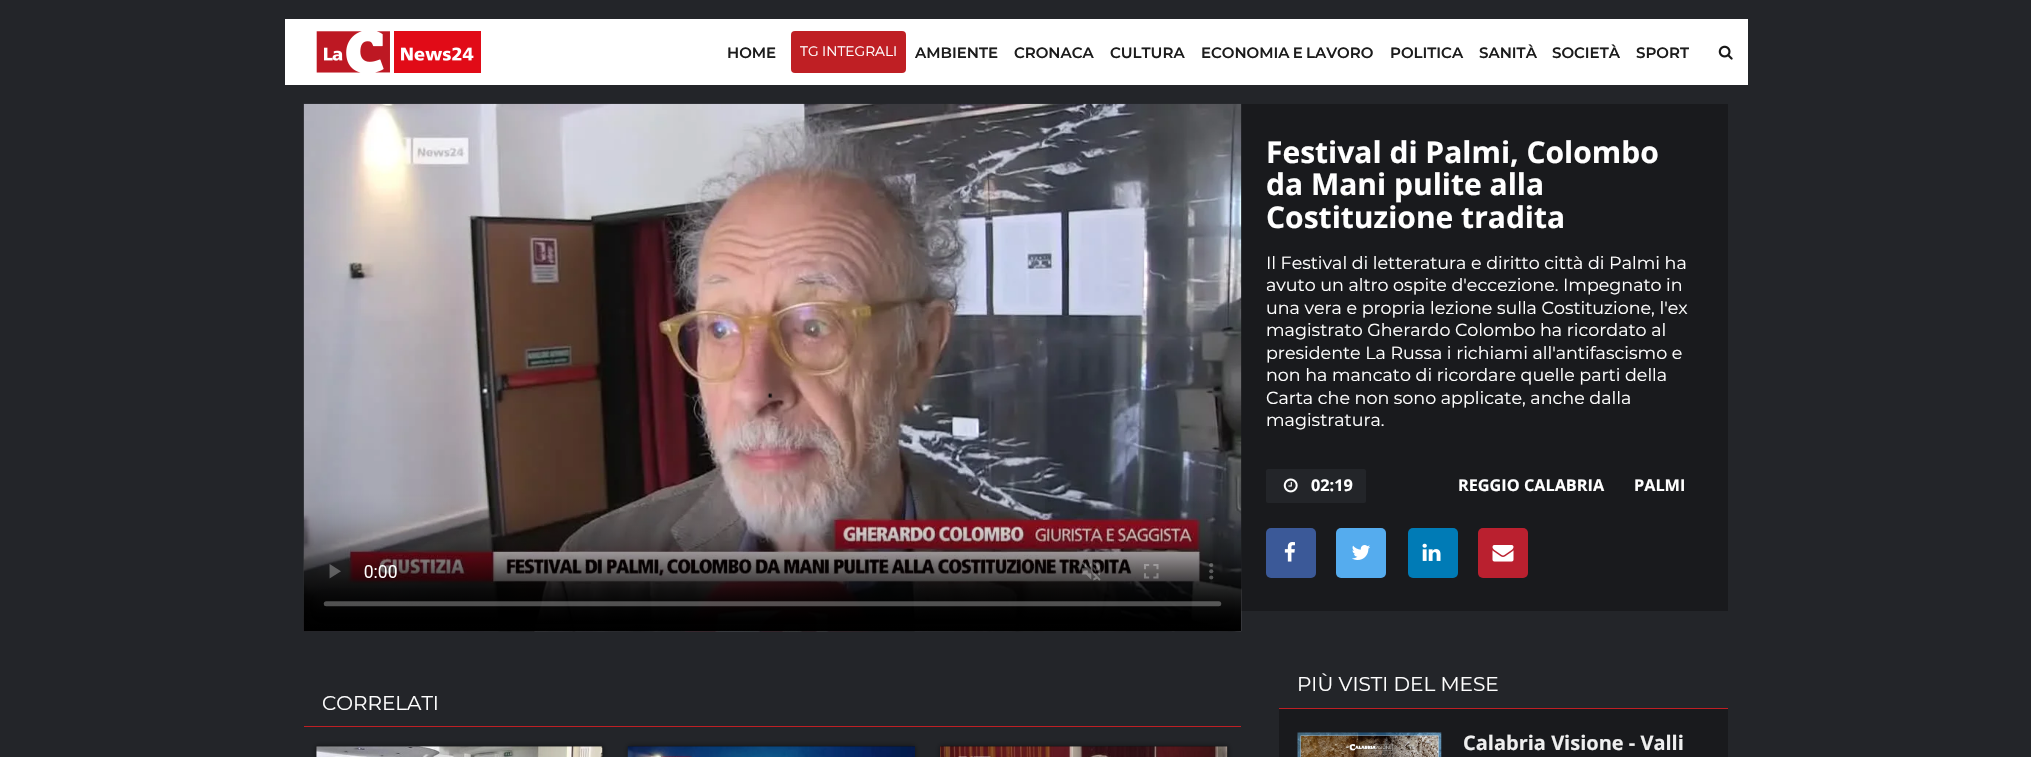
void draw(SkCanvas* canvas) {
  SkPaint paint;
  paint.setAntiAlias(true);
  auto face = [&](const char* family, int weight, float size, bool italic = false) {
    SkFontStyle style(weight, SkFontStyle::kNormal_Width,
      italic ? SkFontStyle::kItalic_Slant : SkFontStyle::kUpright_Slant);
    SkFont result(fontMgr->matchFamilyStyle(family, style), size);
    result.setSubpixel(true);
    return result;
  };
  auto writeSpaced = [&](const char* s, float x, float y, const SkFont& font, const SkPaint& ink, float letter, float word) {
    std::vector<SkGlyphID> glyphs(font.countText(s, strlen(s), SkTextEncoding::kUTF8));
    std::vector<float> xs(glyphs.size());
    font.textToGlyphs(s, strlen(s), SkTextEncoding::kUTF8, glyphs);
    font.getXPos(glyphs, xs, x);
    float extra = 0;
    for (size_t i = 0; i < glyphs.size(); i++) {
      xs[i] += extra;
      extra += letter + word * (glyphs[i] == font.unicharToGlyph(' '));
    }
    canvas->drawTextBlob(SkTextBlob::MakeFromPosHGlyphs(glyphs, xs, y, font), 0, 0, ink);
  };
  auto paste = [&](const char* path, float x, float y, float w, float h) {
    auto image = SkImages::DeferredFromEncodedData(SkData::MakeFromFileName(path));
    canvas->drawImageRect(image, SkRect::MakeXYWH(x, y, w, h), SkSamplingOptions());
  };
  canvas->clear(0xff232529);
  paint.setColor(0xffffffff);
  canvas->drawRect(SkRect::MakeXYWH(285, 19, 1463, 66), paint);
  paste("img/1.png", 316, 31, 165, 42);
  paint.setColor(0xffbf1f24);
  canvas->drawRoundRect(SkRect::MakeXYWH(791, 31, 115, 42), 4, 4, paint);
  paste("img/2.png", 1718, 45, 15, 15);
  paint.setColor(0xff191a1d);
  canvas->drawRect(SkRect::MakeXYWH(1241, 104, 487, 507), paint);
  paste("img/3.png", 303, 104, 939, 528);
  paste("img/4.png", 303, 103, 939, 529);
  paint.setColor(0xff232529);
  canvas->drawRoundRect(SkRect::MakeXYWH(1266, 469, 100, 34), 2.5f, 2.5f, paint);
  paste("img/5.png", 1283, 478, 15, 15);
  paint.setColor(0xff3b5998);
  canvas->drawRoundRect(SkRect::MakeXYWH(1266, 528, 50, 50), 5, 5, paint);
  paste("img/6.png", 1284, 542, 11, 20);
  paint.setColor(0xff55acee);
  canvas->drawRoundRect(SkRect::MakeXYWH(1336, 528, 50, 50), 5, 5, paint);
  paste("img/7.png", 1352, 545, 18, 15);
  paint.setColor(0xff007bb6);
  canvas->drawRoundRect(SkRect::MakeXYWH(1408, 528, 50, 50), 5, 5, paint);
  paste("img/8.png", 1422, 543, 19, 18);
  paint.setColor(0xffba202f);
  canvas->drawRoundRect(SkRect::MakeXYWH(1478, 528, 50, 50), 5, 5, paint);
  paste("img/9.png", 1492, 545, 22, 17);
  paint.setColor(0xffbf1f24);
  canvas->drawRect(SkRect::MakeXYWH(304, 726, 937, 1), paint);
  paint.setColor(0x80000000);
  paint.setMaskFilter(SkMaskFilter::MakeBlur(kNormal_SkBlurStyle, 2.5f));
  canvas->drawRect(SkRect::MakeXYWH(316, 746, 287, 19), paint);
  paint.setMaskFilter(nullptr);
  paint.setColor(0x4d000000);
  canvas->drawRect(SkRect::MakeXYWH(316, 746, 287, 11), paint);
  paste("img/10.png", 316, 746, 287, 11);
  paint.setColor(0x80000000);
  paint.setMaskFilter(SkMaskFilter::MakeBlur(kNormal_SkBlurStyle, 2.5f));
  canvas->drawRect(SkRect::MakeXYWH(628, 746, 287, 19), paint);
  paint.setMaskFilter(nullptr);
  paint.setColor(0x4d000000);
  canvas->drawRect(SkRect::MakeXYWH(628, 746, 287, 1), paint);
  paste("img/11.png", 627, 746, 288, 11);
  paint.setColor(0x80000000);
  paint.setMaskFilter(SkMaskFilter::MakeBlur(kNormal_SkBlurStyle, 2.5f));
  canvas->drawRect(SkRect::MakeXYWH(940, 746, 288, 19), paint);
  paint.setMaskFilter(nullptr);
  paint.setColor(0x4d000000);
  canvas->drawRect(SkRect::MakeXYWH(940, 746, 288, 11), paint);
  paste("img/12.png", 940, 746, 288, 11);
  paint.setColor(0xffbf1f24);
  canvas->drawRect(SkRect::MakeXYWH(1279, 708, 449, 1), paint);
  paint.setColor(0xff191a1d);
  canvas->drawRect(SkRect::MakeXYWH(1279, 709, 449, 48), paint);
  paste("img/13.png", 1297, 732, 145, 25);
  auto f0 = face("Montserrat", 600, 15);
  paint.setColor(0xff1c1c1c);
  canvas->drawString("HOME", 727, 58, f0, paint);
  auto f1 = face("Montserrat", 400, 13.75f);
  paint.setColor(0xffffffff);
  canvas->drawString("TG INTEGRALI", 800, 56, f1, paint);
  paint.setColor(0xff1c1c1c);
  {
    const struct { const char* s; float x, y; } items[] = {
      {"AMBIENTE", 915, 58},
      {"CRONACA", 1014, 58},
      {"CULTURA", 1110, 58},
    };
    for (auto [s, x, y] : items) {
      canvas->drawString(s, x, y, f0, paint);
    }
  }
  writeSpaced("ECONOMIA E LAVORO", 1201, 58, f0, paint, 0, -1);
  {
    const struct { const char* s; float x, y; } items[] = {
      {"POLITICA", 1390, 58},
      {"SANITÀ", 1479, 58},
      {"SOCIETÀ", 1552, 58},
      {"SPORT", 1636, 58},
    };
    for (auto [s, x, y] : items) {
      canvas->drawString(s, x, y, f0, paint);
    }
  }
  auto f2 = face("Open Sans", 700, 30);
  paint.setColor(0xffffffff);
  {
    const struct { const char* s; float x, y; } items[] = {
      {"Festival di Palmi, Colombo", 1266, 163},
      {"da Mani pulite alla", 1266, 195},
      {"Costituzione tradita", 1266, 228},
    };
    for (auto [s, x, y] : items) {
      canvas->drawString(s, x, y, f2, paint);
    }
  }
  auto f3 = face("Montserrat", 400, 17.5f);
  {
    const struct { const char* s; float x, y; } items[] = {
      {"Il Festival di letteratura e diritto città di Palmi ha", 1266, 269},
      {"avuto un altro ospite d'eccezione. Impegnato in", 1266, 291},
      {"una vera e propria lezione sulla Costituzione, l'ex", 1266, 314},
      {"magistrato Gherardo Colombo ha ricordato al", 1266, 336},
      {"presidente La Russa i richiami all'antifascismo e", 1266, 359},
      {"non ha mancato di ricordare quelle parti della", 1266, 381},
      {"Carta che non sono applicate, anche dalla", 1266, 404},
      {"magistratura.", 1266, 426},
    };
    for (auto [s, x, y] : items) {
      canvas->drawString(s, x, y, f3, paint);
    }
  }
  auto f4 = face("Open Sans", 700, 16.25f);
  {
    const struct { const char* s; float x, y; } items[] = {
      {"02:19", 1311, 491},
      {"REGGIO CALABRIA", 1458, 491},
      {"PALMI", 1634, 491},
    };
    for (auto [s, x, y] : items) {
      canvas->drawString(s, x, y, f4, paint);
    }
  }
  auto f5 = face("Montserrat", 400, 20);
  canvas->drawString("CORRELATI", 322, 710, f5, paint);
  canvas->drawString("PIÙ VISTI DEL MESE", 1297, 691, f5, paint);
  auto f6 = face("Open Sans", 700, 20);
  paint.setColor(0xffefefef);
  canvas->drawString("Calabria Visione - Valli", 1463, 750, f6, paint);
}
